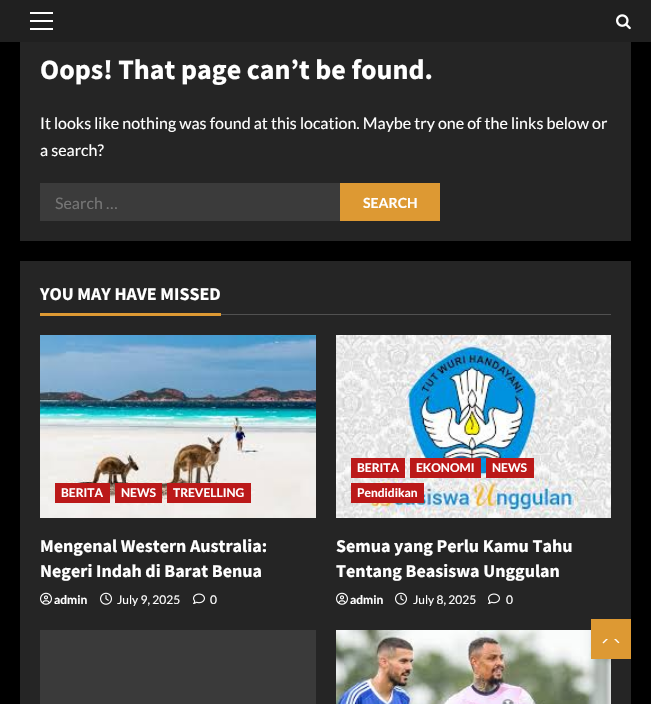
void draw(SkCanvas* canvas) {
  SkPaint paint;
  paint.setAntiAlias(true);
  auto face = [&](const char* family, int weight, float size, bool italic = false) {
    SkFontStyle style(weight, SkFontStyle::kNormal_Width,
      italic ? SkFontStyle::kItalic_Slant : SkFontStyle::kUpright_Slant);
    SkFont result(fontMgr->matchFamilyStyle(family, style), size);
    result.setSubpixel(true);
    return result;
  };
  auto paste = [&](const char* path, float x, float y, float w, float h) {
    auto image = SkImages::DeferredFromEncodedData(SkData::MakeFromFileName(path));
    canvas->drawImageRect(image, SkRect::MakeXYWH(x, y, w, h), SkSamplingOptions());
  };
  auto shape = [&](const char* data, bool evenOdd = false) {
    SkPath result = *SkParsePath::FromSVGString(data);
    if (evenOdd) result.setFillType(SkPathFillType::kEvenOdd);
    return result;
  };
  canvas->clear(0xff000000);
  {
    const struct { float x, y, w, h; SkColor color; } items[] = {
      {0, 0, 651, 42, 0xff202020},
      {30, 20, 23, 2, 0xffffffff},
      {30, 12, 23, 2, 0xffffffff},
      {30, 28, 23, 2, 0xffffffff},
    };
    for (auto [x, y, w, h, color] : items) {
      paint.setColor(color);
      canvas->drawRect(SkRect::MakeXYWH(x, y, w, h), paint);
    }
  }
  paste("img/1.png", 616, 14, 15, 16);
  {
    const struct { float x, y, w, h; SkColor color; } items[] = {
      {20, 42, 611, 199, 0xff252525},
      {40, 183, 300, 38, 0xff3b3b3b},
      {340, 183, 100, 38, 0xffdd9933},
      {20, 261, 611, 443, 0xff252525},
      {221, 314, 390, 1, 0xff515151},
      {40, 313, 181, 3, 0xffdd9933},
    };
    for (auto [x, y, w, h, color] : items) {
      paint.setColor(color);
      canvas->drawRect(SkRect::MakeXYWH(x, y, w, h), paint);
    }
  }
  paste("img/2.png", 40, 335, 276, 183);
  {
    const struct { float x, y, w, h; SkColor color; } items[] = {
      {55, 483, 55, 20, 0xffbb1919},
      {115, 483, 47, 20, 0xffbb1919},
      {167, 483, 84, 20, 0xffbb1919},
    };
    for (auto [x, y, w, h, color] : items) {
      paint.setColor(color);
      canvas->drawRect(SkRect::MakeXYWH(x, y, w, h), paint);
    }
  }
  paste("img/3.png", 40, 592, 12, 13);
  paste("img/4.png", 100, 592, 12, 13);
  paste("img/5.png", 193, 593, 12, 11);
  paste("img/6.png", 336, 335, 275, 183);
  {
    const struct { float x, y, w, h; SkColor color; } items[] = {
      {351, 458, 54, 20, 0xffbb1919},
      {410, 458, 71, 20, 0xffbb1919},
      {486, 458, 48, 20, 0xffbb1919},
      {351, 483, 73, 20, 0xffbb1919},
    };
    for (auto [x, y, w, h, color] : items) {
      paint.setColor(color);
      canvas->drawRect(SkRect::MakeXYWH(x, y, w, h), paint);
    }
  }
  paste("img/3.png", 336, 592, 12, 13);
  paste("img/4.png", 395, 592, 12, 13);
  paste("img/5.png", 488, 593, 12, 11);
  paint.setColor(0xff3a3a3a);
  canvas->drawRect(SkRect::MakeXYWH(40, 630, 276, 74), paint);
  paste("img/7.png", 336, 630, 275, 74);
  paint.setColor(0xffdd9933);
  canvas->drawRect(SkRect::MakeXYWH(591, 619, 40, 40), paint);
  paint.setColor(0xffffffff);
  canvas->drawPath(shape("M606 644C609 644 617.5 645 619.5 642.5L616 639H606L602.5 642.5C603 643.5 604.5 644 606 644Z"), paint);
  paint.setColor(0xffdd9933);
  canvas->drawPath(shape("M621 646H601L611 636Z"), paint);
  auto f0 = face("Source Sans Pro", 700, 28);
  paint.setColor(0xffffffff);
  canvas->drawString("Oops! That page can’t be found.", 40, 79, f0, paint);
  auto f1 = face("Lato", 400, 16);
  canvas->drawString("It looks like nothing was found at this location. Maybe try one of the links below or", 40, 129, f1, paint);
  canvas->drawString("a search?", 40, 156, f1, paint);
  paint.setColor(0xff757575);
  canvas->drawString("Search …", 55, 209, f1, paint);
  auto f2 = face("Lato", 700, 14);
  paint.setColor(0xffffffff);
  canvas->drawString("SEARCH", 363, 208, f2, paint);
  auto f3 = face("Source Sans Pro", 700, 18);
  canvas->drawString("YOU MAY HAVE MISSED", 40, 300, f3, paint);
  auto f4 = face("Lato", 700, 12);
  {
    const struct { const char* s; float x, y; } items[] = {
      {"BERITA", 61, 497},
      {"NEWS", 121, 497},
      {"TREVELLING", 173, 497},
    };
    for (auto [s, x, y] : items) {
      canvas->drawString(s, x, y, f4, paint);
    }
  }
  canvas->drawString("Mengenal Western Australia:", 40, 552, f3, paint);
  canvas->drawString("Negeri Indah di Barat Benua", 40, 577, f3, paint);
  canvas->drawString("admin", 54, 604, f4, paint);
  auto f5 = face("Lato", 400, 12);
  canvas->drawString("July 9, 2025", 117, 604, f5, paint);
  canvas->drawString("0", 210, 604, f5, paint);
  {
    const struct { const char* s; float x, y; } items[] = {
      {"BERITA", 357, 472},
      {"EKONOMI", 416, 472},
      {"NEWS", 492, 472},
      {"Pendidikan", 357, 497},
    };
    for (auto [s, x, y] : items) {
      canvas->drawString(s, x, y, f4, paint);
    }
  }
  canvas->drawString("Semua yang Perlu Kamu Tahu", 336, 552, f3, paint);
  canvas->drawString("Tentang Beasiswa Unggulan", 336, 577, f3, paint);
  canvas->drawString("admin", 350, 604, f4, paint);
  canvas->drawString("July 8, 2025", 413, 604, f5, paint);
  canvas->drawString("0", 506, 604, f5, paint);
}
